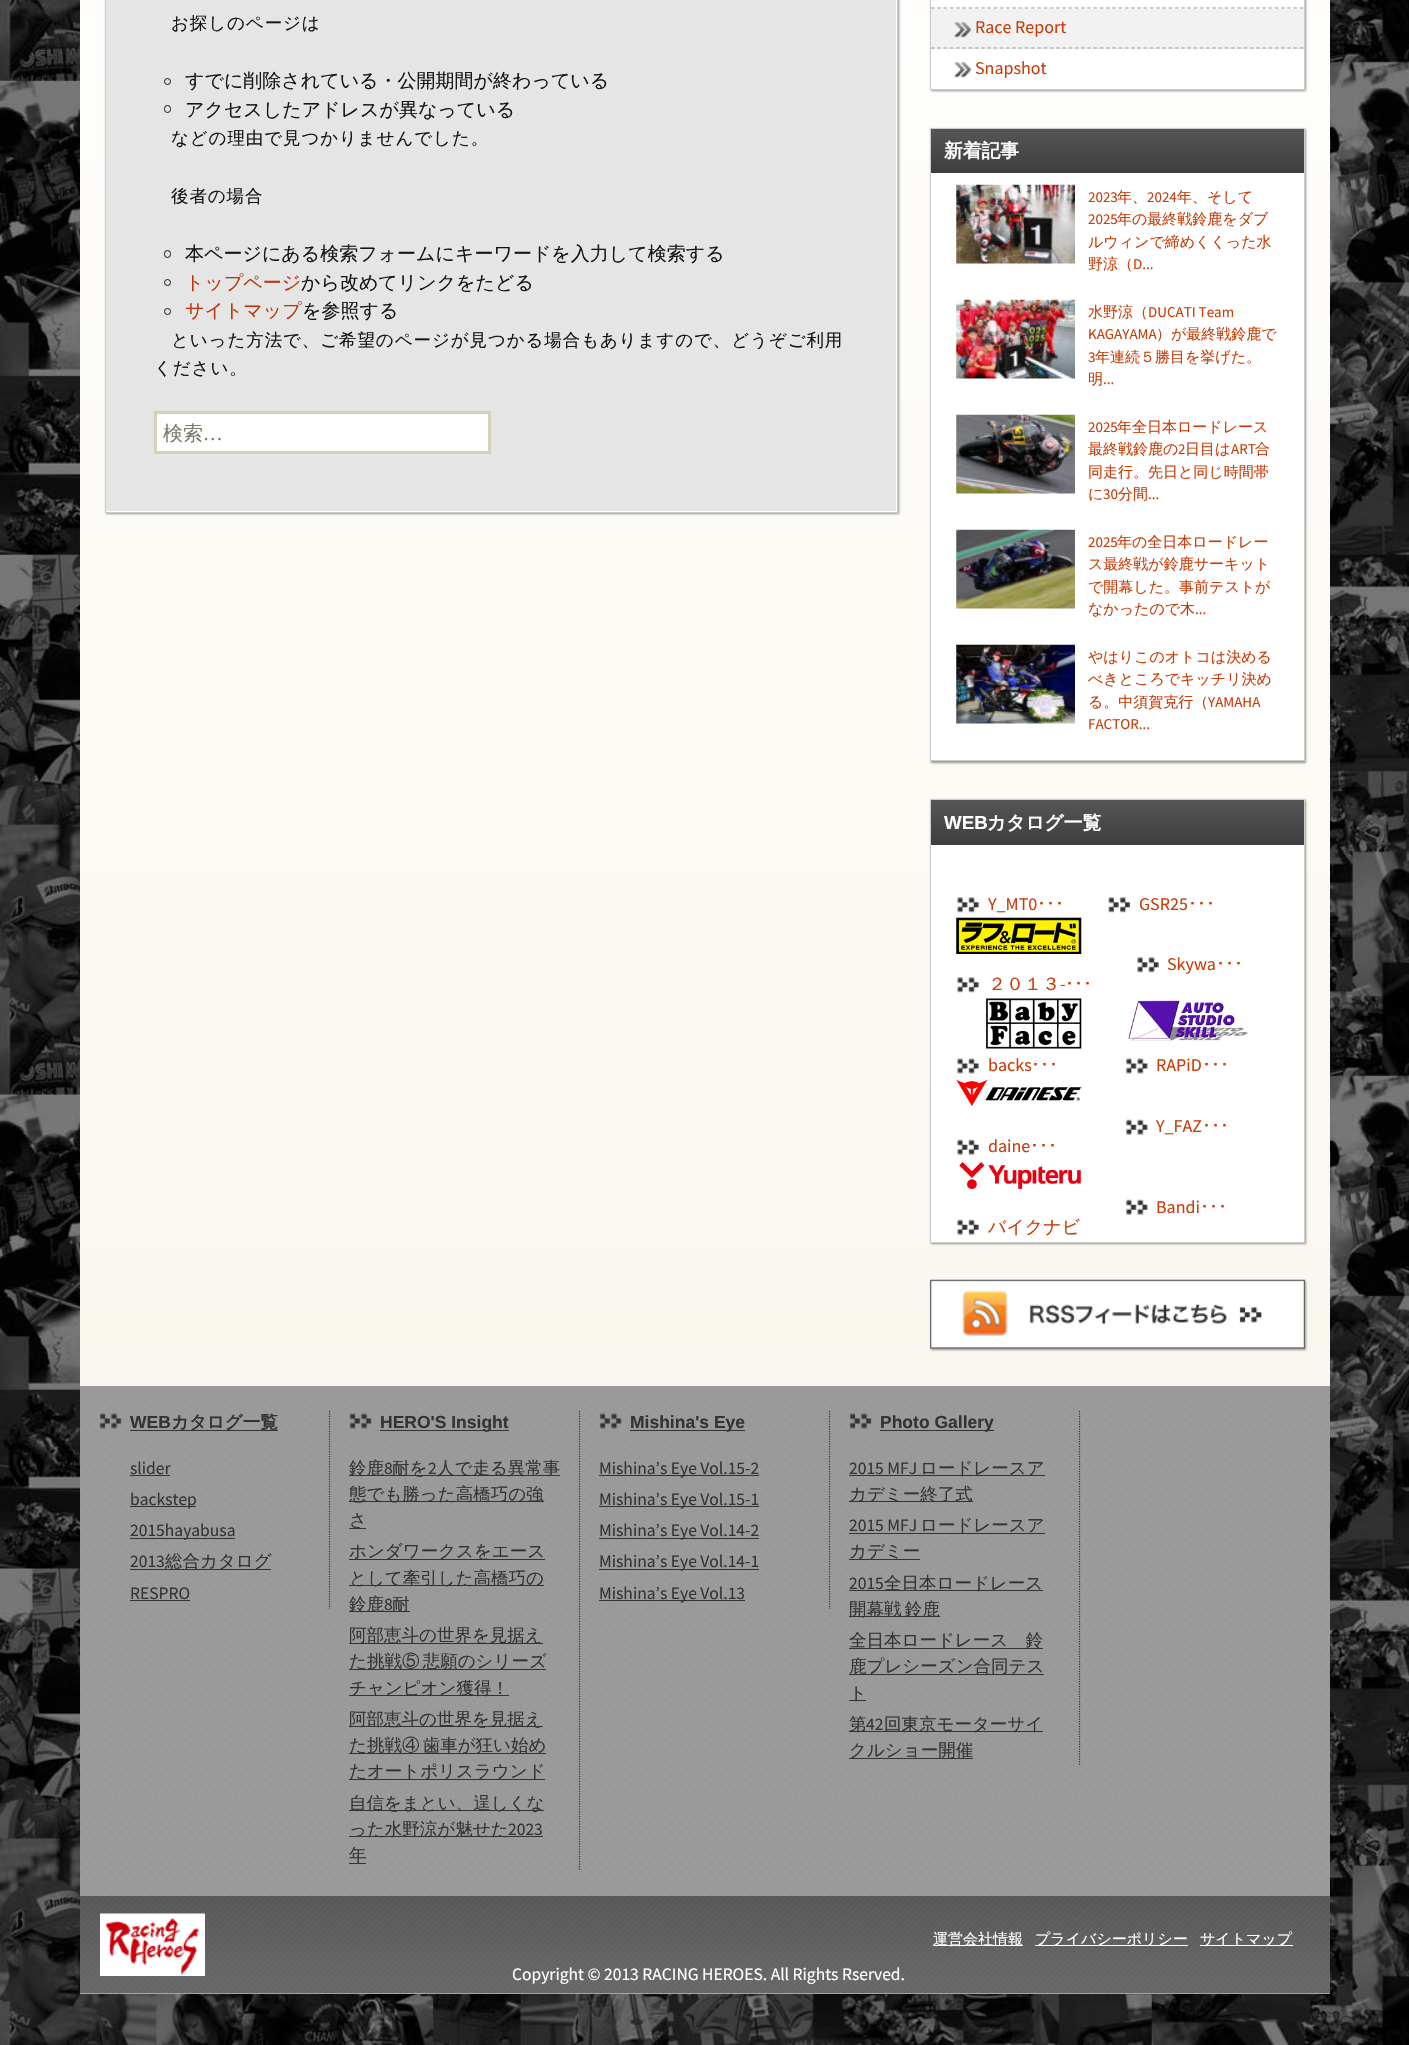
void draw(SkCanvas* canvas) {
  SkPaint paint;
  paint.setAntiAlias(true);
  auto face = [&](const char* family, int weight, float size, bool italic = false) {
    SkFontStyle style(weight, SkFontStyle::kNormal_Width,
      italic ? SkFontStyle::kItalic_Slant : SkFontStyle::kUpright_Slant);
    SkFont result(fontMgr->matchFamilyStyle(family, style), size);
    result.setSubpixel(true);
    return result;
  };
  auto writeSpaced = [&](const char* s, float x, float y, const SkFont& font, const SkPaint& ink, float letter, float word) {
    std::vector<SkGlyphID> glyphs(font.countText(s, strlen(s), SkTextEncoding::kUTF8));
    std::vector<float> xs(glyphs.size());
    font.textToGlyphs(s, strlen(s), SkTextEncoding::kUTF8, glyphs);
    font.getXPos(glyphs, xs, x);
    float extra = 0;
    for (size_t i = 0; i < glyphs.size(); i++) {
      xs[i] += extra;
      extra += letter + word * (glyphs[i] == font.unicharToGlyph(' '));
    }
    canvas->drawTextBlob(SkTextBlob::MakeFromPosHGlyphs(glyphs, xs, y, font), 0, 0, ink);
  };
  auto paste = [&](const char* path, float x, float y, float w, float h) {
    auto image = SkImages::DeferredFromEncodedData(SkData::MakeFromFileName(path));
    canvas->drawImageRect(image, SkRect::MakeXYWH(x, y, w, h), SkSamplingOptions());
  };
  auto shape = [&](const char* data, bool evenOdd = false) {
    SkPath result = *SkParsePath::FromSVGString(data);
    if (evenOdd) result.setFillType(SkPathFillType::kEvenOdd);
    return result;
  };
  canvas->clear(0xffffffff);
  paste("img/1.png", 0, 0, 1409, 2045);
  {
    const SkColor colors[] = {0xffffffff, 0xfff8f6ec};
    const float stops[] = {0, 0.88f};
    const SkPoint ends[] = {{705, -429}, {705, 1994}};
    paint.setShader(SkGradientShader::MakeLinear(ends, colors, stops, 2, SkTileMode::kClamp));
    paint.setAlpha(255);
  }
  canvas->drawRect(SkRect::MakeXYWH(80, 0, 1250, 1386), paint);
  paint.setShader(nullptr);
  paint.setColor(0x66000000);
  paint.setMaskFilter(SkMaskFilter::MakeBlur(kNormal_SkBlurStyle, 1));
  canvas->drawRect(SkRect::MakeXYWH(106, -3, 793, 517), paint);
  paint.setMaskFilter(nullptr);
  paint.setColor(0xffffffff);
  canvas->drawRect(SkRect::MakeXYWH(105.5f, -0.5f, 792, 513), paint);
  paint.setStroke(true);
  paint.setStrokeWidth(1);
  paint.setColor(0xffcccccc);
  canvas->drawRect(SkRect::MakeXYWH(105.5f, -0.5f, 792, 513), paint);
  paint.setStroke(false);
  paint.setColor(0xffe5e5e5);
  canvas->drawRect(SkRect::MakeXYWH(106, 0, 790, 511), paint);
  paint.setStroke(true);
  paint.setColor(0xff141412);
  canvas->drawCircle(167.5f, 81.5f, 3, paint);
  canvas->drawRoundRect(SkRect::MakeXYWH(164.5f, 105.5f, 6, 7), 3, 3, paint);
  canvas->drawRoundRect(SkRect::MakeXYWH(164.5f, 250.5f, 6, 7), 3, 3, paint);
  canvas->drawCircle(167.5f, 282.5f, 3, paint);
  canvas->drawCircle(167.5f, 311.5f, 3, paint);
  paint.setStroke(false);
  paint.setColor(0xffffffff);
  canvas->drawRect(SkRect::MakeXYWH(155.5f, 412.5f, 334, 40), paint);
  paint.setStroke(true);
  paint.setStrokeWidth(3);
  paint.setColor(0xffd4d0ba);
  canvas->drawRect(SkRect::MakeXYWH(155.5f, 412.5f, 334, 40), paint);
  paint.setStroke(false);
  paint.setColor(0x66000000);
  paint.setMaskFilter(SkMaskFilter::MakeBlur(kNormal_SkBlurStyle, 1));
  canvas->drawRect(SkRect::MakeXYWH(931, -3, 375, 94), paint);
  paint.setMaskFilter(nullptr);
  paint.setColor(0xffffffff);
  canvas->drawRect(SkRect::MakeXYWH(930.5f, -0.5f, 374, 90), paint);
  paint.setStroke(true);
  paint.setStrokeWidth(1);
  paint.setColor(0xffcccccc);
  canvas->drawRect(SkRect::MakeXYWH(930.5f, -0.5f, 374, 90), paint);
  paint.setStrokeWidth(1.2f);
  paint.setColor(0xff999999);
  paint.setPathEffect(SkDashPathEffect::Make({{3.75f, 2.5f}}, 0));
  canvas->drawPath(shape("M931 8H1304"), paint);
  paint.setPathEffect(nullptr);
  paint.setStroke(false);
  paint.setColor(0xfff2f2f2);
  canvas->drawRect(SkRect::MakeXYWH(931, 9, 373, 40), paint);
  paste("img/2.png", 953, 22, 19, 16);
  paint.setStroke(true);
  paint.setColor(0xff999999);
  paint.setPathEffect(SkDashPathEffect::Make({{3.75f, 2.5f}}, 0));
  canvas->drawPath(shape("M931 48H1304"), paint);
  paint.setPathEffect(nullptr);
  paste("img/3.png", 953, 62, 19, 16);
  paint.setStroke(false);
  paint.setColor(0x66000000);
  paint.setMaskFilter(SkMaskFilter::MakeBlur(kNormal_SkBlurStyle, 1));
  canvas->drawRect(SkRect::MakeXYWH(931, 129, 375, 634), paint);
  paint.setMaskFilter(nullptr);
  paint.setColor(0xffffffff);
  canvas->drawRect(SkRect::MakeXYWH(931, 173, 373, 587), paint);
  paint.setStroke(true);
  paint.setStrokeWidth(1);
  paint.setColor(0xffcccccc);
  canvas->drawRect(SkRect::MakeXYWH(930.5f, 128.5f, 374, 632), paint);
  paint.setStroke(false);
  {
    const SkColor colors[] = {0xff565656, 0xff404040};
    const float stops[] = {0, 0.88f};
    const SkPoint ends[] = {{1118, 129}, {1118, 173}};
    paint.setShader(SkGradientShader::MakeLinear(ends, colors, stops, 2, SkTileMode::kClamp));
    paint.setAlpha(255);
  }
  canvas->drawRect(SkRect::MakeXYWH(931, 129, 373, 44), paint);
  paste("img/4.png", 956, 184, 119, 80);
  paste("img/5.png", 956, 299, 119, 80);
  paste("img/6.png", 956, 414, 119, 80);
  paste("img/7.png", 956, 529, 119, 80);
  paste("img/8.png", 956, 644, 119, 80);
  paint.setShader(nullptr);
  paint.setColor(0x66000000);
  paint.setMaskFilter(SkMaskFilter::MakeBlur(kNormal_SkBlurStyle, 1));
  canvas->drawRect(SkRect::MakeXYWH(931, 800, 375, 444), paint);
  paint.setMaskFilter(nullptr);
  paint.setColor(0xffffffff);
  canvas->drawRect(SkRect::MakeXYWH(931, 845, 373, 397), paint);
  paint.setStroke(true);
  paint.setColor(0xffcccccc);
  canvas->drawRect(SkRect::MakeXYWH(930.5f, 799.5f, 374, 443), paint);
  paint.setStroke(false);
  {
    const SkColor colors[] = {0xff565656, 0xff404040};
    const float stops[] = {0, 0.88f};
    const SkPoint ends[] = {{1118, 800}, {1118, 845}};
    paint.setShader(SkGradientShader::MakeLinear(ends, colors, stops, 2, SkTileMode::kClamp));
    paint.setAlpha(255);
  }
  canvas->drawRect(SkRect::MakeXYWH(931, 800, 373, 45), paint);
  paste("img/9.png", 957, 897, 22, 16);
  paste("img/10.png", 1108, 897, 22, 16);
  paste("img/9.png", 1137, 957, 22, 16);
  paste("img/11.png", 956, 917, 126, 37);
  paste("img/9.png", 957, 977, 22, 16);
  paste("img/12.png", 986, 998, 96, 51);
  paste("img/13.png", 957, 1058, 22, 16);
  paste("img/14.png", 1128, 1000, 120, 41);
  paste("img/15.png", 1126, 1058, 22, 16);
  paste("img/16.png", 1126, 1119, 22, 16);
  paste("img/17.png", 956, 1079, 126, 27);
  paste("img/18.png", 957, 1139, 22, 16);
  paste("img/16.png", 1126, 1199, 22, 16);
  paste("img/19.png", 959, 1160, 122, 30);
  paste("img/18.png", 957, 1219, 22, 16);
  paint.setShader(nullptr);
  paint.setColor(0x66000000);
  paint.setMaskFilter(SkMaskFilter::MakeBlur(kNormal_SkBlurStyle, 1));
  canvas->drawRect(SkRect::MakeXYWH(931, 1281, 375, 69), paint);
  paint.setMaskFilter(nullptr);
  paste("img/20.png", 930, 1279, 375, 70);
  paint.setColor(0xffe8e5ce);
  canvas->drawRect(SkRect::MakeXYWH(80, 1993, 1250, 1), paint);
  paste("img/21.png", 80, 1386, 1250, 510);
  paint.setStroke(true);
  paint.setStrokeWidth(1.2f);
  paint.setColor(0xff333333);
  paint.setPathEffect(SkDashPathEffect::Make({{1.25f, 1.25f}}, 0));
  canvas->drawPath(shape("M329.5 1411V1609"), paint);
  paint.setPathEffect(nullptr);
  paste("img/22.png", 99, 1413, 23, 16);
  paint.setStroke(false);
  {
    const struct { float x, y, w, h; SkColor color; } items[] = {
      {130, 1430, 148, 1, 0xff333333},
      {130, 1475, 40, 1, 0xff333333},
      {130, 1506, 66, 1, 0xff333333},
      {130, 1538, 105, 1, 0xff333333},
      {130, 1569, 141, 1, 0xff333333},
      {130, 1600, 60, 1, 0xff333333},
    };
    for (auto [x, y, w, h, color] : items) {
      paint.setColor(color);
      canvas->drawRect(SkRect::MakeXYWH(x, y, w, h), paint);
    }
  }
  paint.setStroke(true);
  paint.setPathEffect(SkDashPathEffect::Make({{1.25f, 1.25f}}, 0));
  canvas->drawPath(shape("M579.5 1411V1871"), paint);
  paint.setPathEffect(nullptr);
  paste("img/23.png", 349, 1413, 23, 16);
  paint.setStroke(false);
  {
    const struct { float x, y, w, h; SkColor color; } items[] = {
      {380, 1430, 129, 1, 0xff333333},
      {349, 1475, 211, 1, 0xff333333},
      {349, 1501, 195, 1, 0xff333333},
      {349, 1528, 17, 1, 0xff333333},
      {349, 1559, 196, 1, 0xff333333},
      {349, 1585, 195, 1, 0xff333333},
      {349, 1611, 61, 1, 0xff333333},
      {349, 1643, 194, 1, 0xff333333},
      {349, 1669, 197, 1, 0xff333333},
      {349, 1695, 160, 1, 0xff333333},
      {349, 1726, 194, 1, 0xff333333},
      {349, 1753, 197, 1, 0xff333333},
      {349, 1779, 196, 1, 0xff333333},
      {349, 1810, 195, 1, 0xff333333},
      {349, 1836, 194, 1, 0xff333333},
      {349, 1863, 17, 1, 0xff333333},
    };
    for (auto [x, y, w, h, color] : items) {
      paint.setColor(color);
      canvas->drawRect(SkRect::MakeXYWH(x, y, w, h), paint);
    }
  }
  paint.setStroke(true);
  paint.setPathEffect(SkDashPathEffect::Make({{1.25f, 1.25f}}, 0));
  canvas->drawPath(shape("M829.5 1411V1609"), paint);
  paint.setPathEffect(nullptr);
  paste("img/24.png", 599, 1413, 23, 16);
  paint.setStroke(false);
  {
    const struct { float x, y, w, h; SkColor color; } items[] = {
      {630, 1430, 115, 1, 0xff333333},
      {599, 1475, 160, 1, 0xff333333},
      {599, 1506, 160, 1, 0xff333333},
      {599, 1538, 160, 1, 0xff333333},
      {599, 1569, 160, 1, 0xff333333},
      {599, 1600, 146, 1, 0xff333333},
    };
    for (auto [x, y, w, h, color] : items) {
      paint.setColor(color);
      canvas->drawRect(SkRect::MakeXYWH(x, y, w, h), paint);
    }
  }
  paint.setStroke(true);
  paint.setPathEffect(SkDashPathEffect::Make({{1.25f, 1.25f}}, 0));
  canvas->drawPath(shape("M1079.5 1411V1766"), paint);
  paint.setPathEffect(nullptr);
  paste("img/22.png", 849, 1413, 23, 16);
  paint.setStroke(false);
  {
    const struct { float x, y, w, h; SkColor color; } items[] = {
      {880, 1430, 114, 1, 0xff333333},
      {849, 1475, 196, 1, 0xff333333},
      {849, 1501, 124, 1, 0xff333333},
      {849, 1533, 196, 1, 0xff333333},
      {849, 1559, 71, 1, 0xff333333},
      {849, 1590, 194, 1, 0xff333333},
      {849, 1616, 91, 1, 0xff333333},
      {849, 1648, 194, 1, 0xff333333},
      {849, 1674, 195, 1, 0xff333333},
      {849, 1700, 17, 1, 0xff333333},
      {849, 1731, 194, 1, 0xff333333},
      {849, 1758, 124, 1, 0xff333333},
    };
    for (auto [x, y, w, h, color] : items) {
      paint.setColor(color);
      canvas->drawRect(SkRect::MakeXYWH(x, y, w, h), paint);
    }
  }
  paste("img/25.png", 80, 1896, 1250, 98);
  paste("img/26.png", 100, 1913, 105, 63);
  {
    const struct { float x, y, w, h; SkColor color; } items[] = {
      {933, 1945, 90, 1, 0xffffffff},
      {1035, 1945, 153, 1, 0xffffffff},
      {1200, 1945, 93, 1, 0xffffffff},
    };
    for (auto [x, y, w, h, color] : items) {
      paint.setColor(color);
      canvas->drawRect(SkRect::MakeXYWH(x, y, w, h), paint);
    }
  }
  auto f0 = face("WenQuanYi Zen Hei", 500, 17.5f);
  paint.setColor(0xff141412);
  writeSpaced("お探しのページは", 171, 29, f0, paint, 0.9f, 0);
  auto f1 = face("WenQuanYi Zen Hei", 500, 19);
  canvas->drawString("すでに削除されている・公開期間が終わっている", 185, 87, f1, paint);
  canvas->drawString("アクセスしたアドレスが異なっている", 185, 116, f1, paint);
  writeSpaced("などの理由で見つかりませんでした。", 171, 144, f0, paint, 0.9f, 0);
  writeSpaced("後者の場合", 171, 202, f0, paint, 0.9f, 0);
  canvas->drawString("本ページにある検索フォームにキーワードを入力して検索する", 185, 260, f1, paint);
  paint.setColor(0xffbc360a);
  canvas->drawString("トップページ", 185, 289, f1, paint);
  paint.setColor(0xff141412);
  canvas->drawString("から改めてリンクをたどる", 301, 289, f1, paint);
  paint.setColor(0xffbc360a);
  canvas->drawString("サイトマップ", 185, 317, f1, paint);
  paint.setColor(0xff141412);
  canvas->drawString("を参照する", 302, 317, f1, paint);
  writeSpaced("といった方法で、ご希望のページが見つかる場合もありますので、どうぞご利用", 171, 346, f0, paint, 0.9f, 0);
  writeSpaced("ください。", 154, 374, f0, paint, 0.9f, 0);
  auto f2 = face("WenQuanYi Zen Hei", 500, 20);
  paint.setColor(0xff7d7b6d);
  canvas->drawString("検索", 163, 440, f2, paint);
  auto f3 = face("Source Sans Pro", 400, 20);
  canvas->drawString("…", 203, 440, f3, paint);
  auto f4 = face("Source Sans Pro", 400, 18);
  paint.setColor(0xffca3c08);
  canvas->drawString("Race Report", 975, 33, f4, paint);
  canvas->drawString("Snapshot", 975, 74, f4, paint);
  auto f5 = face("WenQuanYi Zen Hei", 700, 18.75f);
  paint.setColor(0xffffffff);
  canvas->drawString("新着記事", 944, 157, f5, paint);
  auto f6 = face("Source Sans Pro", 400, 15);
  paint.setColor(0xffca3c08);
  canvas->drawString("2023", 1088, 202, f6, paint);
  auto f7 = face("WenQuanYi Zen Hei", 500, 15);
  canvas->drawString("年、", 1117, 202, f7, paint);
  canvas->drawString("2024", 1147, 202, f6, paint);
  canvas->drawString("年、そして", 1177, 202, f7, paint);
  canvas->drawString("2025", 1088, 224, f6, paint);
  {
    const struct { const char* s; float x, y; } items[] = {
      {"年の最終戦鈴鹿をダブ", 1117, 224},
      {"ルウィンで締めくくった水", 1088, 247},
      {"野涼（", 1088, 269},
    };
    for (auto [s, x, y] : items) {
      canvas->drawString(s, x, y, f7, paint);
    }
  }
  canvas->drawString("D...", 1133, 269, f6, paint);
  canvas->drawString("水野涼（", 1088, 317, f7, paint);
  canvas->drawString("DUCATI Team", 1148, 317, f6, paint);
  canvas->drawString("KAGAYAMA", 1088, 339, f6, paint);
  canvas->drawString("）が最終戦鈴鹿で", 1156, 339, f7, paint);
  canvas->drawString("3", 1088, 362, f6, paint);
  canvas->drawString("年連続５勝目を挙げた。", 1095, 362, f7, paint);
  canvas->drawString("明", 1088, 384, f7, paint);
  canvas->drawString("...", 1103, 384, f6, paint);
  canvas->drawString("2025", 1088, 432, f6, paint);
  canvas->drawString("年全日本ロードレース", 1117, 432, f7, paint);
  canvas->drawString("最終戦鈴鹿の", 1088, 454, f7, paint);
  canvas->drawString("2", 1178, 454, f6, paint);
  canvas->drawString("日目は", 1185, 454, f7, paint);
  canvas->drawString("ART", 1231, 454, f6, paint);
  {
    const struct { const char* s; float x, y; } items[] = {
      {"合", 1255, 454},
      {"同走行。先日と同じ時間帯", 1088, 477},
      {"に", 1088, 499},
    };
    for (auto [s, x, y] : items) {
      canvas->drawString(s, x, y, f7, paint);
    }
  }
  canvas->drawString("30", 1103, 499, f6, paint);
  canvas->drawString("分間", 1118, 499, f7, paint);
  canvas->drawString("...", 1148, 499, f6, paint);
  canvas->drawString("2025", 1088, 547, f6, paint);
  {
    const struct { const char* s; float x, y; } items[] = {
      {"年の全日本ロードレー", 1117, 547},
      {"ス最終戦が鈴鹿サーキット", 1088, 569},
      {"で開幕した。事前テストが", 1088, 592},
      {"なかったので木", 1088, 614},
    };
    for (auto [s, x, y] : items) {
      canvas->drawString(s, x, y, f7, paint);
    }
  }
  canvas->drawString("...", 1195, 614, f6, paint);
  {
    const struct { const char* s; float x, y; } items[] = {
      {"やはりこのオトコは決める", 1088, 662},
      {"べきところでキッチリ決め", 1088, 684},
      {"る。中須賀克行（", 1088, 707},
    };
    for (auto [s, x, y] : items) {
      canvas->drawString(s, x, y, f7, paint);
    }
  }
  canvas->drawString("YAMAHA", 1208, 707, f6, paint);
  canvas->drawString("FACTOR...", 1088, 729, f6, paint);
  auto f8 = face("Liberation Sans", 700, 18.75f);
  paint.setColor(0xffffffff);
  canvas->drawString("WEB", 944, 829, f8, paint);
  canvas->drawString("カタログ一覧", 987, 829, f5, paint);
  paint.setColor(0xffca3c08);
  canvas->drawString("Y_MT0", 988, 910, f4, paint);
  auto f9 = face("IPAPGothic", 400, 18);
  canvas->drawString("･･･", 1037, 910, f9, paint);
  canvas->drawString("GSR25", 1139, 910, f4, paint);
  canvas->drawString("･･･", 1188, 910, f9, paint);
  canvas->drawString("Skywa", 1167, 970, f4, paint);
  canvas->drawString("･･･", 1216, 970, f9, paint);
  auto f10 = face("WenQuanYi Zen Hei", 500, 18);
  canvas->drawString("２０１３", 988, 990, f10, paint);
  canvas->drawString("･･･", 1065, 990, f9, paint);
  canvas->drawString("-", 1060, 990, f4, paint);
  canvas->drawString("backs", 988, 1071, f4, paint);
  canvas->drawString("･･･", 1031, 1071, f9, paint);
  canvas->drawString("RAPiD", 1156, 1071, f4, paint);
  canvas->drawString("･･･", 1202, 1071, f9, paint);
  canvas->drawString("Y_FAZ", 1156, 1132, f4, paint);
  canvas->drawString("･･･", 1202, 1132, f9, paint);
  canvas->drawString("daine", 988, 1152, f4, paint);
  canvas->drawString("･･･", 1030, 1152, f9, paint);
  canvas->drawString("Bandi", 1156, 1213, f4, paint);
  canvas->drawString("･･･", 1200, 1213, f9, paint);
  canvas->drawString("バイクナビ", 988, 1233, f10, paint);
  auto f11 = face("Liberation Sans", 700, 17.5f);
  paint.setColor(0xff333333);
  canvas->drawString("WEB", 130, 1428, f11, paint);
  auto f12 = face("WenQuanYi Zen Hei", 700, 17.5f);
  canvas->drawString("カタログ一覧", 171, 1428, f12, paint);
  auto f13 = face("Source Sans Pro", 400, 17.5f);
  {
    const struct { const char* s; float x, y; } items[] = {
      {"slider", 130, 1474},
      {"backstep", 130, 1505},
      {"2015hayabusa", 130, 1536},
      {"2013", 130, 1567},
    };
    for (auto [s, x, y] : items) {
      canvas->drawString(s, x, y, f13, paint);
    }
  }
  canvas->drawString("総合カタログ", 165, 1567, f0, paint);
  canvas->drawString("RESPRO", 130, 1599, f13, paint);
  canvas->drawString("HERO'S Insight", 380, 1428, f11, paint);
  canvas->drawString("鈴鹿", 349, 1474, f0, paint);
  canvas->drawString("8", 384, 1474, f13, paint);
  canvas->drawString("耐を", 392, 1474, f0, paint);
  canvas->drawString("2", 428, 1474, f13, paint);
  {
    const struct { const char* s; float x, y; } items[] = {
      {"人で走る異常事", 437, 1474},
      {"態でも勝った高橋巧の強", 349, 1500},
      {"さ", 349, 1526},
      {"ホンダワークスをエース", 349, 1557},
      {"として牽引した高橋巧の", 349, 1584},
      {"鈴鹿", 349, 1610},
    };
    for (auto [s, x, y] : items) {
      canvas->drawString(s, x, y, f0, paint);
    }
  }
  canvas->drawString("8", 384, 1610, f13, paint);
  canvas->drawString("耐", 392, 1610, f0, paint);
  canvas->drawString("阿部恵斗の世界を見据え", 349, 1641, f0, paint);
  writeSpaced("た挑戦⑤ 悲願のシリーズ", 349, 1667, f0, paint, 0, -2);
  canvas->drawString("チャンピオン獲得！", 349, 1694, f0, paint);
  canvas->drawString("阿部恵斗の世界を見据え", 349, 1725, f0, paint);
  writeSpaced("た挑戦④ 歯車が狂い始め", 349, 1751, f0, paint, 0, -2);
  {
    const struct { const char* s; float x, y; } items[] = {
      {"たオートポリスラウンド", 349, 1777},
      {"自信をまとい、逞しくな", 349, 1809},
      {"った水野涼が魅せた", 349, 1835},
    };
    for (auto [s, x, y] : items) {
      canvas->drawString(s, x, y, f0, paint);
    }
  }
  canvas->drawString("2023", 508, 1835, f13, paint);
  canvas->drawString("年", 349, 1861, f0, paint);
  canvas->drawString("Mishina's Eye", 630, 1428, f11, paint);
  {
    const struct { const char* s; float x, y; } items[] = {
      {"Mishina’s Eye Vol.15-2", 599, 1474},
      {"Mishina’s Eye Vol.15-1", 599, 1505},
      {"Mishina’s Eye Vol.14-2", 599, 1536},
      {"Mishina’s Eye Vol.14-1", 599, 1567},
      {"Mishina’s Eye Vol.13", 599, 1599},
    };
    for (auto [s, x, y] : items) {
      canvas->drawString(s, x, y, f13, paint);
    }
  }
  canvas->drawString("Photo Gallery", 880, 1428, f11, paint);
  canvas->drawString("2015 MFJ", 849, 1474, f13, paint);
  canvas->drawString("ロードレースア", 920, 1474, f0, paint);
  canvas->drawString("カデミー終了式", 849, 1500, f0, paint);
  canvas->drawString("2015 MFJ", 849, 1531, f13, paint);
  canvas->drawString("ロードレースア", 920, 1531, f0, paint);
  canvas->drawString("カデミー", 849, 1557, f0, paint);
  canvas->drawString("2015", 849, 1589, f13, paint);
  canvas->drawString("全日本ロードレース", 884, 1589, f0, paint);
  writeSpaced("開幕戦 鈴鹿", 849, 1615, f0, paint, 0, -2);
  {
    const struct { const char* s; float x, y; } items[] = {
      {"全日本ロードレース　鈴", 849, 1646},
      {"鹿プレシーズン合同テス", 849, 1672},
      {"ト", 849, 1699},
      {"第", 849, 1730},
    };
    for (auto [s, x, y] : items) {
      canvas->drawString(s, x, y, f0, paint);
    }
  }
  canvas->drawString("42", 866, 1730, f13, paint);
  canvas->drawString("回東京モーターサイ", 884, 1730, f0, paint);
  canvas->drawString("クルショー開催", 849, 1756, f0, paint);
  paint.setColor(0xffffffff);
  {
    const struct { const char* s; float x, y; } items[] = {
      {"運営会社情報", 933, 1944},
      {"プライバシーポリシー", 1035, 1944},
      {"サイトマップ", 1200, 1944},
    };
    for (auto [s, x, y] : items) {
      canvas->drawString(s, x, y, f7, paint);
    }
  }
  canvas->drawString("Copyright © 2013 RACING HEROES. All Rights Rserved.", 512, 1980, f13, paint);
}
